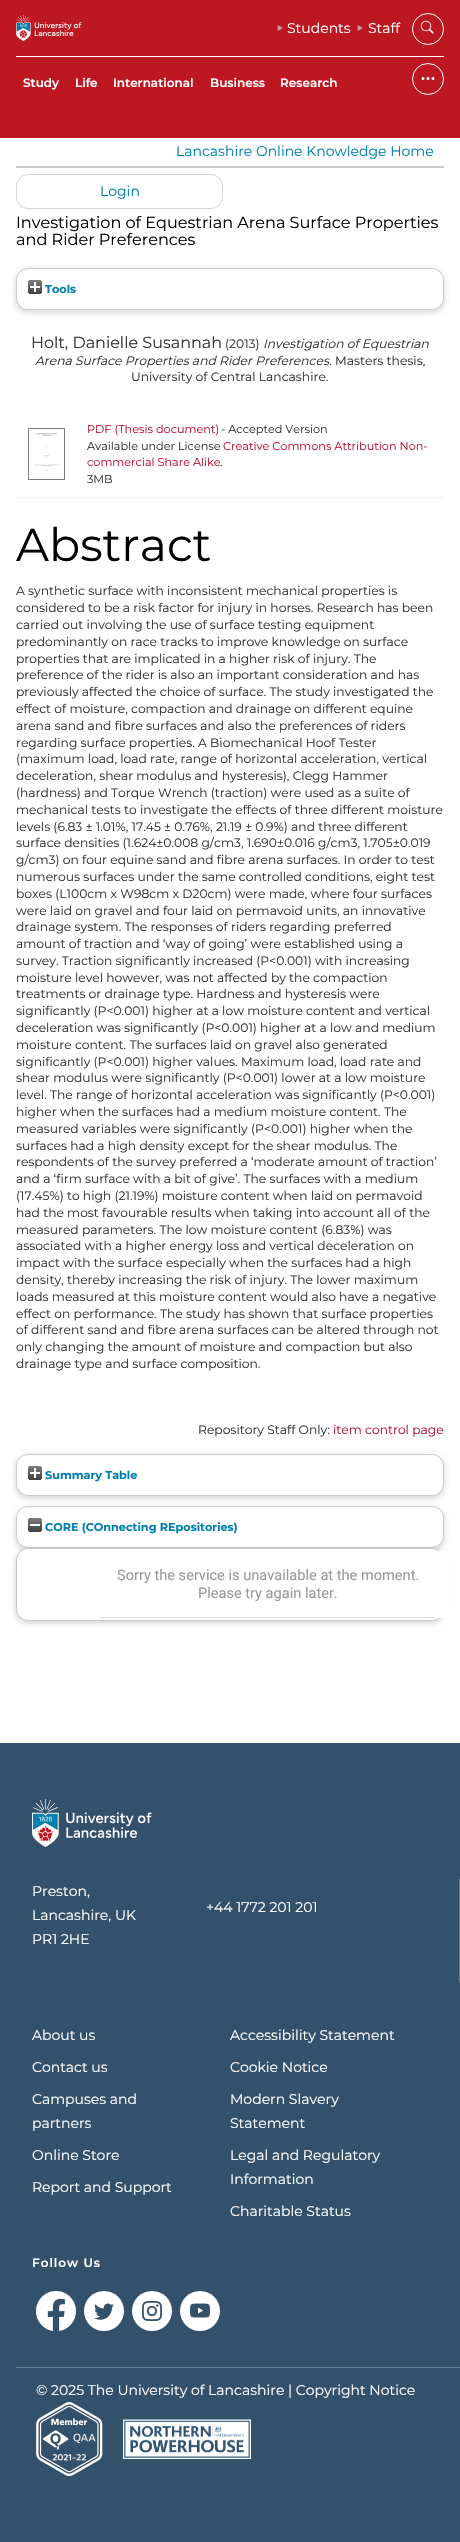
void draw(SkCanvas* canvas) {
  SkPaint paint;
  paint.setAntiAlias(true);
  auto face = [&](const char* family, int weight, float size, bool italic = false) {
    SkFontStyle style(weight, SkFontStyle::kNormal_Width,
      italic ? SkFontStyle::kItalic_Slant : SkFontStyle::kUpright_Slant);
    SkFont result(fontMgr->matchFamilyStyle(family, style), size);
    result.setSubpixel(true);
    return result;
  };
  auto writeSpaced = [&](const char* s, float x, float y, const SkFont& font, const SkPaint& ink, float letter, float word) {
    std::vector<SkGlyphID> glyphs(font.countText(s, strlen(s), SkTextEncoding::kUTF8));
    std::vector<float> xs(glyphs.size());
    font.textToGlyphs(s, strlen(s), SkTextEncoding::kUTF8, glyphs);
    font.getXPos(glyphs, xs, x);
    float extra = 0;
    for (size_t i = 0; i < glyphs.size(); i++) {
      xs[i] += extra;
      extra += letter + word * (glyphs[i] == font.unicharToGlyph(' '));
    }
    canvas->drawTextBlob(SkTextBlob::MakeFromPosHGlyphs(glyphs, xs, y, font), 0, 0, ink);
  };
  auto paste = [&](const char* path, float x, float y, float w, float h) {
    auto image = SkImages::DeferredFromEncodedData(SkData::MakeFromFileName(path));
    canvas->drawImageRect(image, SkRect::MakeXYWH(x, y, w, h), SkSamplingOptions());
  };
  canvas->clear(0xffffffff);
  paint.setColor(0xffbd1721);
  canvas->drawRect(SkRect::MakeXYWH(0, 0, 460, 138), paint);
  paste("img/1.png", 16, 15, 66, 26);
  paste("img/2.png", 277, 25, 6, 6);
  paste("img/2.png", 357, 25, 6, 6);
  paint.setColor(0xffffffff);
  canvas->drawRect(SkRect::MakeXYWH(16, 56, 428, 1), paint);
  paint.setStroke(true);
  paint.setStrokeWidth(1);
  canvas->drawCircle(428, 29, 15.5f, paint);
  paste("img/3.png", 420, 20, 14, 14);
  canvas->drawCircle(428, 79, 15.5f, paint);
  paste("img/4.png", 421, 77, 14, 3);
  paint.setStroke(false);
  paint.setColor(0xffcccccc);
  canvas->drawRect(SkRect::MakeXYWH(16, 166, 428, 2), paint);
  paint.setStroke(true);
  paint.setColor(0xffd3d3d3);
  canvas->drawRoundRect(SkRect::MakeXYWH(16.5f, 174.5f, 206, 34), 11.5f, 11.5f, paint);
  paint.setStroke(false);
  paint.setColor(0x4d646464);
  paint.setMaskFilter(SkMaskFilter::MakeBlur(kNormal_SkBlurStyle, 3));
  canvas->drawRoundRect(SkRect::MakeXYWH(16, 270, 428, 42), 12, 12, paint);
  paint.setMaskFilter(nullptr);
  paint.setColor(0xffffffff);
  canvas->drawRoundRect(SkRect::MakeXYWH(16.5f, 268.5f, 427, 41), 11.5f, 11.5f, paint);
  paint.setStroke(true);
  paint.setColor(0xffcccccc);
  canvas->drawRoundRect(SkRect::MakeXYWH(16.5f, 268.5f, 427, 41), 11.5f, 11.5f, paint);
  paste("img/5.png", 28, 280, 14, 14);
  paint.setStroke(false);
  paint.setColor(0xfff0f0f0);
  canvas->drawRect(SkRect::MakeXYWH(16, 497, 428, 1), paint);
  paste("img/6.png", 28, 428, 37, 52);
  paint.setColor(0x4d646464);
  paint.setMaskFilter(SkMaskFilter::MakeBlur(kNormal_SkBlurStyle, 3));
  canvas->drawRoundRect(SkRect::MakeXYWH(16, 1456, 428, 42), 12, 12, paint);
  paint.setMaskFilter(nullptr);
  paint.setColor(0xffffffff);
  canvas->drawRoundRect(SkRect::MakeXYWH(16.5f, 1454.5f, 427, 41), 11.5f, 11.5f, paint);
  paint.setStroke(true);
  paint.setColor(0xffcccccc);
  canvas->drawRoundRect(SkRect::MakeXYWH(16.5f, 1454.5f, 427, 41), 11.5f, 11.5f, paint);
  paste("img/5.png", 28, 1466, 14, 14);
  paint.setStroke(false);
  paint.setColor(0x4d646464);
  paint.setMaskFilter(SkMaskFilter::MakeBlur(kNormal_SkBlurStyle, 3));
  canvas->drawRoundRect(SkRect::MakeXYWH(16, 1508, 428, 42), 12, 12, paint);
  paint.setMaskFilter(nullptr);
  paint.setColor(0xffffffff);
  canvas->drawRoundRect(SkRect::MakeXYWH(16.5f, 1506.5f, 427, 41), 11.5f, 11.5f, paint);
  paint.setStroke(true);
  paint.setColor(0xffcccccc);
  canvas->drawRoundRect(SkRect::MakeXYWH(16.5f, 1506.5f, 427, 41), 11.5f, 11.5f, paint);
  paste("img/7.png", 28, 1518, 14, 14);
  paint.setStroke(false);
  paint.setColor(0x4d646464);
  paint.setMaskFilter(SkMaskFilter::MakeBlur(kNormal_SkBlurStyle, 3));
  canvas->drawRoundRect(SkRect::MakeXYWH(16, 1550, 428, 73), 12, 12, paint);
  paint.setMaskFilter(nullptr);
  paint.setColor(0xffffffff);
  canvas->drawRoundRect(SkRect::MakeXYWH(16.5f, 1548.5f, 427, 72), 11.5f, 11.5f, paint);
  paint.setStroke(true);
  paint.setColor(0xffc8c8c8);
  canvas->drawRoundRect(SkRect::MakeXYWH(16.5f, 1548.5f, 427, 72), 11.5f, 11.5f, paint);
  paint.setStroke(false);
  {
    const struct { float x, y, w, h; SkColor color; } items[] = {
      {438, 1551, 11, 67, 0xffffffff},
      {100, 1617, 335, 1, 0xffdddddd},
      {0, 1743, 460, 799, 0xff34516c},
    };
    for (auto [x, y, w, h, color] : items) {
      paint.setColor(color);
      canvas->drawRect(SkRect::MakeXYWH(x, y, w, h), paint);
    }
  }
  paste("img/8.png", 32, 1799, 120, 48);
  paint.setColor(0xff677d91);
  canvas->drawRect(SkRect::MakeXYWH(16, 2367, 444, 1), paint);
  canvas->drawRect(SkRect::MakeXYWH(459, 1879, 1, 104), paint);
  paste("img/9.png", 36, 2291, 40, 40);
  paint.setColor(0xffffffff);
  canvas->drawCircle(104, 2311, 20, paint);
  paste("img/10.png", 94, 2303, 20, 17);
  canvas->drawCircle(152, 2311, 20, paint);
  paste("img/11.png", 142, 2301, 20, 20);
  canvas->drawCircle(200, 2311, 20, paint);
  paste("img/12.png", 190, 2303, 20, 15);
  paste("img/13.png", 36, 2402, 67, 74);
  paste("img/14.png", 123, 2419, 128, 40);
  auto f0 = face("Montserrat", 400, 14);
  canvas->drawString("Students", 287, 33, f0, paint);
  canvas->drawString("Staff", 368, 33, f0, paint);
  auto f1 = face("Montserrat", 600, 12);
  {
    const struct { const char* s; float x, y; } items[] = {
      {"Study", 23, 87},
      {"Life", 75, 87},
      {"International", 113, 87},
      {"Business", 210, 87},
      {"Research", 280, 87},
    };
    for (auto [s, x, y] : items) {
      canvas->drawString(s, x, y, f1, paint);
    }
  }
  paint.setColor(0xff007fb0);
  canvas->drawString("Lancashire Online Knowledge Home", 176, 156, f0, paint);
  canvas->drawString("Login", 100, 196, f0, paint);
  auto f2 = face("Montserrat", 400, 16.1f);
  paint.setColor(0xff000000);
  canvas->drawString("Investigation of Equestrian Arena Surface Properties", 16, 228, f2, paint);
  canvas->drawString("and Rider Preferences", 16, 245, f2, paint);
  auto f3 = face("Montserrat", 700, 11.25f);
  paint.setColor(0xff007fb0);
  canvas->drawString("Tools", 45, 293, f3, paint);
  auto f4 = face("Montserrat", 400, 16);
  paint.setColor(0xff333333);
  canvas->drawString("Holt, Danielle Susannah", 31, 348, f4, paint);
  auto f5 = face("Montserrat", 400, 12.3f);
  canvas->drawString("(2013)", 225, 348, f5, paint);
  auto f6 = face("Montserrat", 400, 12.3f, true);
  canvas->drawString("Investigation of Equestrian", 263, 348, f6, paint);
  canvas->drawString("Arena Surface Properties and Rider Preferences.", 35, 365, f6, paint);
  canvas->drawString("Masters thesis,", 335, 365, f5, paint);
  canvas->drawString("University of Central Lancashire.", 131, 381, f5, paint);
  auto f7 = face("Montserrat", 400, 11.25f);
  paint.setColor(0xffbe0f34);
  canvas->drawString("PDF (Thesis document)", 87, 433, f7, paint);
  paint.setColor(0xff333333);
  canvas->drawString("- Accepted Version", 221, 433, f7, paint);
  canvas->drawString("Available under License", 87, 450, f7, paint);
  paint.setColor(0xffbe0f34);
  canvas->drawString("Creative Commons Attribution Non-", 223, 450, f7, paint);
  canvas->drawString("commercial Share Alike", 87, 466, f7, paint);
  paint.setColor(0xff333333);
  canvas->drawString(".", 220, 466, f7, paint);
  canvas->drawString("3MB", 87, 483, f7, paint);
  auto f8 = face("Montserrat", 400, 46);
  paint.setColor(0xff000000);
  canvas->drawString("Abstract", 16, 561, f8, paint);
  paint.setColor(0xff333333);
  {
    const struct { const char* s; float x, y; } items[] = {
      {"A synthetic surface with inconsistent mechanical properties is", 16, 595},
      {"considered to be a risk factor for injury in horses. Research has been", 16, 612},
      {"carried out involving the use of surface testing equipment", 16, 629},
      {"predominantly on race tracks to improve knowledge on surface", 16, 646},
      {"properties that are implicated in a higher risk of injury. The", 16, 663},
      {"preference of the rider is also an important consideration and has", 16, 679},
      {"previously affected the choice of surface. The study investigated the", 16, 696},
      {"effect of moisture, compaction and drainage on different equine", 16, 713},
      {"arena sand and fibre surfaces and also the preferences of riders", 16, 730},
      {"regarding surface properties. A Biomechanical Hoof Tester", 16, 747},
      {"(maximum load, load rate, range of horizontal acceleration, vertical", 16, 763},
      {"deceleration, shear modulus and hysteresis), Clegg Hammer", 16, 780},
      {"(hardness) and Torque Wrench (traction) were used as a suite of", 16, 797},
      {"mechanical tests to investigate the effects of three different moisture", 16, 814},
      {"levels (6.83 ± 1.01%, 17.45 ± 0.76%, 21.19 ± 0.9%) and three different", 16, 831},
      {"surface densities (1.624±0.008 g/cm3, 1.690±0.016 g/cm3, 1.705±0.019", 16, 847},
      {"g/cm3) on four equine sand and fibre arena surfaces. In order to test", 16, 864},
      {"numerous surfaces under the same controlled conditions, eight test", 16, 881},
      {"boxes (L100cm x W98cm x D20cm) were made, where four surfaces", 16, 898},
      {"were laid on gravel and four laid on permavoid units, an innovative", 16, 915},
      {"drainage system. The responses of riders regarding preferred", 16, 931},
      {"amount of traction and ‘way of going’ were established using a", 16, 948},
      {"survey. Traction significantly increased (P<0.001) with increasing", 16, 965},
      {"moisture level however, was not affected by the compaction", 16, 982},
      {"treatments or drainage type. Hardness and hysteresis were", 16, 998},
      {"significantly (P<0.001) higher at a low moisture content and vertical", 16, 1015},
      {"deceleration was significantly (P<0.001) higher at a low and medium", 16, 1032},
      {"moisture content. The surfaces laid on gravel also generated", 16, 1049},
      {"significantly (P<0.001) higher values. Maximum load, load rate and", 16, 1066},
      {"shear modulus were significantly (P<0.001) lower at a low moisture", 16, 1082},
      {"level. The range of horizontal acceleration was significantly (P<0.001)", 16, 1099},
      {"higher when the surfaces had a medium moisture content. The", 16, 1116},
      {"measured variables were significantly (P<0.001) higher when the", 16, 1133},
      {"surfaces had a high density except for the shear modulus. The", 16, 1150},
      {"respondents of the survey preferred a ‘moderate amount of traction’", 16, 1166},
      {"and a ‘firm surface with a bit of give’. The surfaces with a medium", 16, 1183},
      {"(17.45%) to high (21.19%) moisture content when laid on permavoid", 16, 1200},
      {"had the most favourable results when taking into account all of the", 16, 1217},
      {"measured parameters. The low moisture content (6.83%) was", 16, 1234},
      {"associated with a higher energy loss and vertical deceleration on", 16, 1250},
      {"impact with the surface especially when the surfaces had a high", 16, 1267},
      {"density, thereby increasing the risk of injury. The lower maximum", 16, 1284},
      {"loads measured at this moisture content would also have a negative", 16, 1301},
      {"effect on performance. The study has shown that surface properties", 16, 1318},
      {"of different sand and fibre arena surfaces can be altered through not", 16, 1334},
      {"only changing the amount of moisture and compaction but also", 16, 1351},
      {"drainage type and surface composition.", 16, 1368},
      {"Repository Staff Only:", 198, 1434},
    };
    for (auto [s, x, y] : items) {
      canvas->drawString(s, x, y, f5, paint);
    }
  }
  paint.setColor(0xffbe0f34);
  canvas->drawString("item control page", 333, 1434, f5, paint);
  paint.setColor(0xff007fb0);
  canvas->drawString("Summary Table", 45, 1479, f3, paint);
  canvas->drawString("CORE (COnnecting REpositories)", 45, 1531, f3, paint);
  auto f9 = face("Roboto", 400, 14.6f);
  paint.setColor(0xff999999);
  canvas->drawString("Sorry the service is unavailable at the moment.", 117, 1580, f9, paint);
  canvas->drawString("Please try again later.", 198, 1598, f9, paint);
  paint.setColor(0xffffffff);
  {
    const struct { const char* s; float x, y; } items[] = {
      {"Preston,", 32, 1896},
      {"Lancashire, UK", 32, 1920},
      {"PR1 2HE", 32, 1944},
      {"+44 1772 201 201", 206, 1912},
      {"About us", 32, 2040},
      {"Accessibility Statement", 230, 2040},
      {"Contact us", 32, 2072},
      {"Cookie Notice", 230, 2072},
      {"Campuses and", 32, 2104},
      {"partners", 32, 2128},
      {"Modern Slavery", 230, 2104},
      {"Statement", 230, 2128},
      {"Online Store", 32, 2160},
      {"Legal and Regulatory", 230, 2160},
      {"Information", 230, 2184},
      {"Report and Support", 32, 2192},
      {"Charitable Status", 230, 2216},
    };
    for (auto [s, x, y] : items) {
      canvas->drawString(s, x, y, f0, paint);
    }
  }
  writeSpaced("Follow Us", 32, 2267, f1, paint, 1, 0);
  canvas->drawString("© 2025 The University of Lancashire | Copyright Notice", 36, 2395, f0, paint);
}
